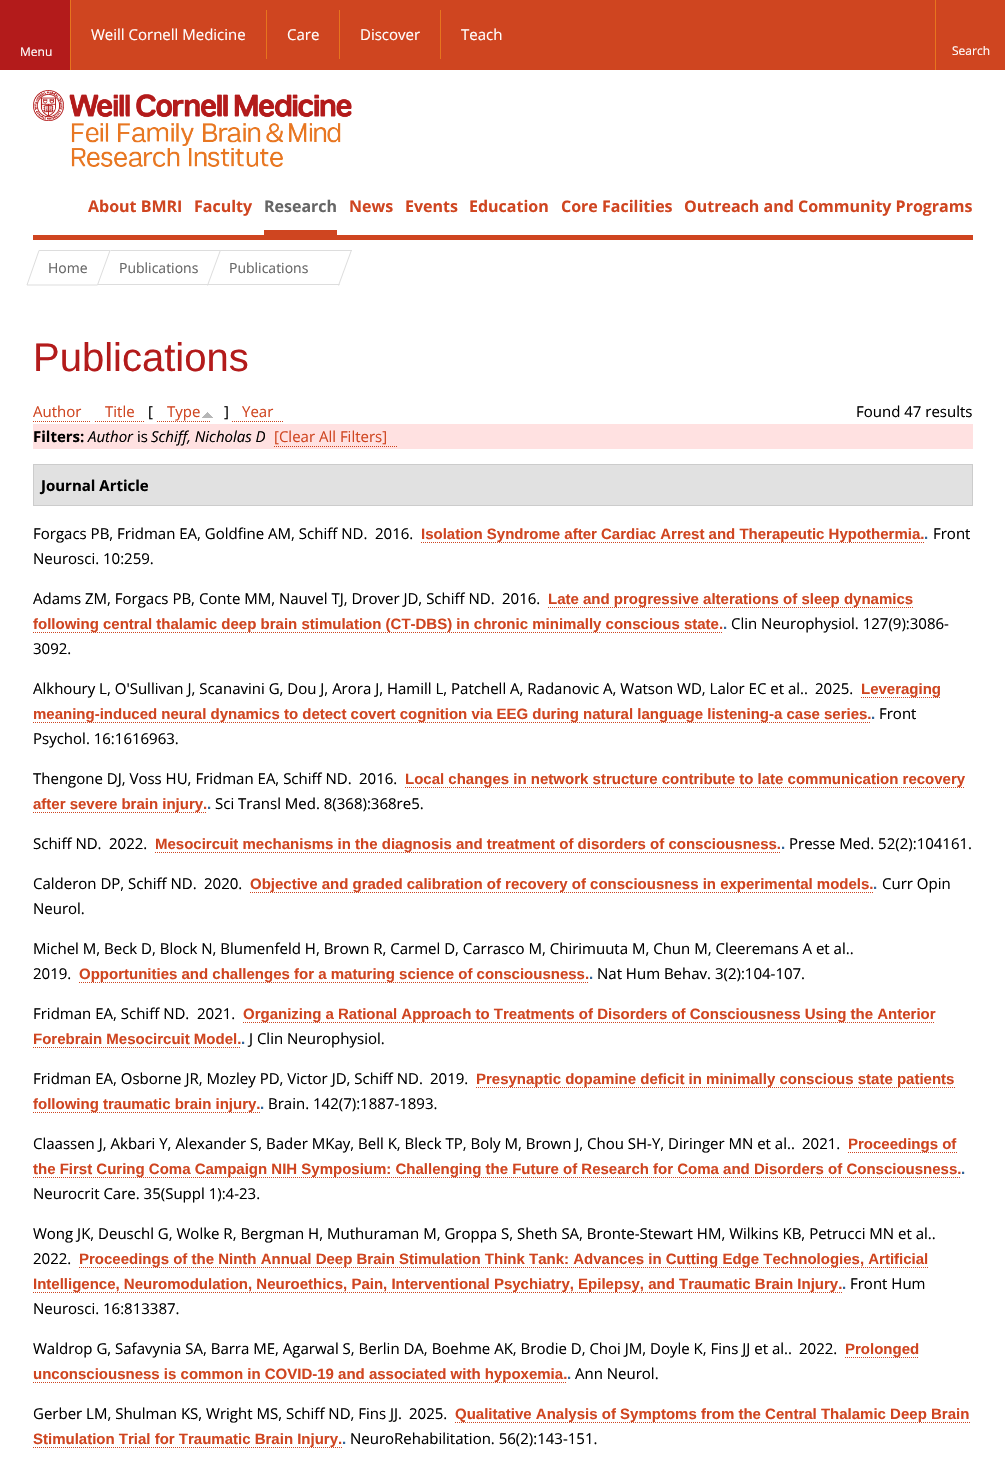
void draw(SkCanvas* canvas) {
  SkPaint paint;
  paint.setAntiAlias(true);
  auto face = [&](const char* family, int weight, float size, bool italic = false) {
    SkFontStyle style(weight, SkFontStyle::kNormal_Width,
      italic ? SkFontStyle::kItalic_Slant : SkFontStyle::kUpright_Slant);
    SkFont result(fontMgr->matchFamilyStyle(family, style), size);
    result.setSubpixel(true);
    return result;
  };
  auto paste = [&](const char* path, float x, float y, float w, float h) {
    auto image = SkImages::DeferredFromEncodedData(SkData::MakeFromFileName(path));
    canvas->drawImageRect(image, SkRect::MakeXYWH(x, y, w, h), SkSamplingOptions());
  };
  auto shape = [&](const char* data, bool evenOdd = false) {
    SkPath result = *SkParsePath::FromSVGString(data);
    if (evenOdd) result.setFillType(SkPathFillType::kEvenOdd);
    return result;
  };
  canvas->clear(0xffffffff);
  {
    const struct { float x, y, w, h; SkColor color; } items[] = {
      {71, 0, 934, 70, 0xffcf4520},
      {266, 10, 1, 49, 0xffe7751d},
      {339, 10, 1, 49, 0xffe7751d},
      {440, 10, 1, 49, 0xffe7751d},
      {0, 0, 70, 70, 0xffb31b1b},
      {70, 0, 1, 70, 0xffe7751d},
      {935, 0, 1, 70, 0xffe7751d},
    };
    for (auto [x, y, w, h, color] : items) {
      paint.setColor(color);
      canvas->drawRect(SkRect::MakeXYWH(x, y, w, h), paint);
    }
  }
  paste("img/1.png", 33, 90, 319, 77);
  paint.setColor(0xffcf4520);
  canvas->drawRect(SkRect::MakeXYWH(33, 235, 940, 5), paint);
  canvas->drawRect(SkRect::MakeXYWH(264, 230, 73, 5), paint);
  paint.setStroke(true);
  paint.setStrokeWidth(1);
  paint.setColor(0xffdddddd);
  canvas->drawPath(shape("M39 250.5H110L97.5 285H27Z"), paint);
  paint.setStroke(false);
  canvas->drawPath(shape("M111 250H221L220 251H110Z"), paint);
  canvas->drawPath(shape("M220 250H221L208 285.5H207Z"), paint);
  canvas->drawRect(SkRect::MakeXYWH(98, 284, 110, 1), paint);
  canvas->drawPath(shape("M221 250H352V251H220Z"), paint);
  canvas->drawPath(shape("M351 250H352L339 285.5H338Z"), paint);
  canvas->drawPath(shape("M208 284H340L339 285H208Z"), paint);
  paint.setStroke(true);
  paint.setColor(0xffcf4520);
  paint.setPathEffect(SkDashPathEffect::Make({{1, 1}}, 0));
  canvas->drawPath(shape("M33 421.5H91"), paint);
  paint.setPathEffect(nullptr);
  paint.setPathEffect(SkDashPathEffect::Make({{1, 1}}, 0));
  canvas->drawPath(shape("M95 421.5H144"), paint);
  paint.setPathEffect(nullptr);
  paint.setPathEffect(SkDashPathEffect::Make({{1, 1}}, 0));
  canvas->drawPath(shape("M157 421.5H211"), paint);
  paint.setPathEffect(nullptr);
  paste("img/2.png", 202, 412, 11, 6);
  paint.setPathEffect(SkDashPathEffect::Make({{1, 1}}, 0));
  canvas->drawPath(shape("M232 421.5H284"), paint);
  paint.setPathEffect(nullptr);
  paint.setStroke(false);
  paint.setColor(0xffffe1e1);
  canvas->drawRect(SkRect::MakeXYWH(33, 424, 940, 25), paint);
  paint.setStroke(true);
  paint.setColor(0xffcf4520);
  paint.setPathEffect(SkDashPathEffect::Make({{1, 1}}, 0));
  canvas->drawPath(shape("M274 446.5H397"), paint);
  paint.setPathEffect(nullptr);
  paint.setStroke(false);
  paint.setColor(0xffe1e1e1);
  canvas->drawRect(SkRect::MakeXYWH(33.5f, 464.5f, 939, 41), paint);
  paint.setStroke(true);
  paint.setColor(0xffcccccc);
  canvas->drawRect(SkRect::MakeXYWH(33.5f, 464.5f, 939, 41), paint);
  paint.setColor(0xffcf4520);
  paint.setPathEffect(SkDashPathEffect::Make({{1, 1}}, 0));
  canvas->drawPath(shape("M421 542.5H924"), paint);
  paint.setPathEffect(nullptr);
  paint.setPathEffect(SkDashPathEffect::Make({{1, 1}}, 0));
  canvas->drawPath(shape("M548 607.5H913"), paint);
  paint.setPathEffect(nullptr);
  paint.setPathEffect(SkDashPathEffect::Make({{1, 1}}, 0));
  canvas->drawPath(shape("M33 632.5H723"), paint);
  paint.setPathEffect(nullptr);
  paint.setPathEffect(SkDashPathEffect::Make({{1, 1}}, 0));
  canvas->drawPath(shape("M861 697.5H941"), paint);
  paint.setPathEffect(nullptr);
  paint.setPathEffect(SkDashPathEffect::Make({{1, 1}}, 0));
  canvas->drawPath(shape("M33 722.5H871"), paint);
  paint.setPathEffect(nullptr);
  paint.setPathEffect(SkDashPathEffect::Make({{1, 1}}, 0));
  canvas->drawPath(shape("M405 787.5H965"), paint);
  paint.setPathEffect(nullptr);
  paint.setPathEffect(SkDashPathEffect::Make({{1, 1}}, 0));
  canvas->drawPath(shape("M33 812.5H207"), paint);
  paint.setPathEffect(nullptr);
  paint.setPathEffect(SkDashPathEffect::Make({{1, 1}}, 0));
  canvas->drawPath(shape("M155 852.5H781"), paint);
  paint.setPathEffect(nullptr);
  paint.setPathEffect(SkDashPathEffect::Make({{1, 1}}, 0));
  canvas->drawPath(shape("M250 892.5H873"), paint);
  paint.setPathEffect(nullptr);
  paint.setPathEffect(SkDashPathEffect::Make({{1, 1}}, 0));
  canvas->drawPath(shape("M79 982.5H589"), paint);
  paint.setPathEffect(nullptr);
  paint.setPathEffect(SkDashPathEffect::Make({{1, 1}}, 0));
  canvas->drawPath(shape("M243 1022.5H935"), paint);
  paint.setPathEffect(nullptr);
  paint.setPathEffect(SkDashPathEffect::Make({{1, 1}}, 0));
  canvas->drawPath(shape("M33 1047.5H241"), paint);
  paint.setPathEffect(nullptr);
  paint.setPathEffect(SkDashPathEffect::Make({{1, 1}}, 0));
  canvas->drawPath(shape("M476 1087.5H955"), paint);
  paint.setPathEffect(nullptr);
  paint.setPathEffect(SkDashPathEffect::Make({{1, 1}}, 0));
  canvas->drawPath(shape("M33 1112.5H260"), paint);
  paint.setPathEffect(nullptr);
  paint.setPathEffect(SkDashPathEffect::Make({{1, 1}}, 0));
  canvas->drawPath(shape("M848 1152.5H957"), paint);
  paint.setPathEffect(nullptr);
  paint.setPathEffect(SkDashPathEffect::Make({{1, 1}}, 0));
  canvas->drawPath(shape("M33 1177.5H961"), paint);
  paint.setPathEffect(nullptr);
  paint.setPathEffect(SkDashPathEffect::Make({{1, 1}}, 0));
  canvas->drawPath(shape("M79 1267.5H928"), paint);
  paint.setPathEffect(nullptr);
  paint.setPathEffect(SkDashPathEffect::Make({{1, 1}}, 0));
  canvas->drawPath(shape("M33 1292.5H842"), paint);
  paint.setPathEffect(nullptr);
  paint.setPathEffect(SkDashPathEffect::Make({{1, 1}}, 0));
  canvas->drawPath(shape("M845 1357.5H919"), paint);
  paint.setPathEffect(nullptr);
  paint.setPathEffect(SkDashPathEffect::Make({{1, 1}}, 0));
  canvas->drawPath(shape("M33 1382.5H567"), paint);
  paint.setPathEffect(nullptr);
  paint.setPathEffect(SkDashPathEffect::Make({{1, 1}}, 0));
  canvas->drawPath(shape("M455 1422.5H970"), paint);
  paint.setPathEffect(nullptr);
  paint.setPathEffect(SkDashPathEffect::Make({{1, 1}}, 0));
  canvas->drawPath(shape("M33 1447.5H342"), paint);
  paint.setPathEffect(nullptr);
  auto f0 = face("Open Sans", 400, 15);
  paint.setStroke(false);
  paint.setColor(0xffffffff);
  {
    const struct { const char* s; float x, y; } items[] = {
      {"Weill Cornell Medicine", 91, 40},
      {"Care", 287, 40},
      {"Discover", 360, 40},
      {"Teach", 461, 40},
    };
    for (auto [s, x, y] : items) {
      canvas->drawString(s, x, y, f0, paint);
    }
  }
  auto f1 = face("Open Sans", 400, 12);
  canvas->drawString("Menu", 20, 56, f1, paint);
  canvas->drawString("Search", 952, 55, f1, paint);
  auto f2 = face("Open Sans", 700, 16);
  paint.setColor(0xffcf4520);
  canvas->drawString("About BMRI", 88, 212, f2, paint);
  canvas->drawString("Faculty", 194, 212, f2, paint);
  paint.setColor(0xff666666);
  canvas->drawString("Research", 264, 212, f2, paint);
  paint.setColor(0xffcf4520);
  {
    const struct { const char* s; float x, y; } items[] = {
      {"News", 349, 212},
      {"Events", 405, 212},
      {"Education", 469, 212},
      {"Core Facilities", 561, 212},
      {"Outreach and Community Programs", 684, 212},
    };
    for (auto [s, x, y] : items) {
      canvas->drawString(s, x, y, f2, paint);
    }
  }
  auto f3 = face("Open Sans", 400, 14);
  paint.setColor(0xff666666);
  {
    const struct { const char* s; float x, y; } items[] = {
      {"Home", 48, 273},
      {"Publications", 119, 273},
      {"Publications", 229, 273},
    };
    for (auto [s, x, y] : items) {
      canvas->drawString(s, x, y, f3, paint);
    }
  }
  auto f4 = face("Liberation Sans", 400, 40);
  paint.setColor(0xffb31b1b);
  canvas->drawString("Publications", 33, 371, f4, paint);
  paint.setColor(0xffcf4520);
  canvas->drawString("Author", 33, 417, f0, paint);
  canvas->drawString("Title", 105, 417, f0, paint);
  paint.setColor(0xff000000);
  canvas->drawString("[", 148, 417, f0, paint);
  paint.setColor(0xffcf4520);
  canvas->drawString("Type", 167, 417, f0, paint);
  paint.setColor(0xff000000);
  canvas->drawString("]", 224, 417, f0, paint);
  paint.setColor(0xffcf4520);
  canvas->drawString("Year", 242, 417, f0, paint);
  paint.setColor(0xff000000);
  canvas->drawString("Found 47 results", 856, 417, f0, paint);
  auto f5 = face("Open Sans", 700, 15);
  canvas->drawString("Filters:", 33, 442, f5, paint);
  auto f6 = face("Open Sans", 400, 15, true);
  canvas->drawString("Author", 88, 442, f6, paint);
  canvas->drawString("is", 137, 442, f0, paint);
  canvas->drawString("Schiff, Nicholas D", 151, 442, f6, paint);
  paint.setColor(0xffcf4520);
  canvas->drawString("[Clear All Filters]", 274, 442, f0, paint);
  paint.setColor(0xff000000);
  canvas->drawString("Journal Article", 41, 491, f5, paint);
  canvas->drawString("Forgacs PB, Fridman EA, Goldfine AM, Schiff ND.", 33, 539, f0, paint);
  canvas->drawString("2016.", 375, 539, f0, paint);
  auto f7 = face("Liberation Sans", 700, 15);
  paint.setColor(0xffcf4520);
  canvas->drawString("Isolation Syndrome after Cardiac Arrest and Therapeutic Hypothermia.", 421, 539, f7, paint);
  paint.setColor(0xff336599);
  canvas->drawString(".", 924, 539, f7, paint);
  paint.setColor(0xff000000);
  {
    const struct { const char* s; float x, y; } items[] = {
      {"Front", 933, 539},
      {"Neurosci. 10:259.", 33, 564},
      {"Adams ZM, Forgacs PB, Conte MM, Nauvel TJ, Drover JD, Schiff ND.", 33, 604},
      {"2016.", 502, 604},
    };
    for (auto [s, x, y] : items) {
      canvas->drawString(s, x, y, f0, paint);
    }
  }
  paint.setColor(0xffcf4520);
  canvas->drawString("Late and progressive alterations of sleep dynamics", 548, 604, f7, paint);
  canvas->drawString("following central thalamic deep brain stimulation (CT-DBS) in chronic minimally conscious state.", 33, 629, f7, paint);
  paint.setColor(0xff336599);
  canvas->drawString(".", 723, 629, f7, paint);
  paint.setColor(0xff000000);
  {
    const struct { const char* s; float x, y; } items[] = {
      {"Clin Neurophysiol. 127(9):3086-", 731, 629},
      {"3092.", 33, 654},
      {"Alkhoury L, O'Sullivan J, Scanavini G, Dou J, Arora J, Hamill L, Patchell A, Radanovic A, Watson WD, Lalor EC et al..", 33, 694},
      {"2025.", 815, 694},
    };
    for (auto [s, x, y] : items) {
      canvas->drawString(s, x, y, f0, paint);
    }
  }
  paint.setColor(0xffcf4520);
  canvas->drawString("Leveraging", 861, 694, f7, paint);
  canvas->drawString("meaning-induced neural dynamics to detect covert cognition via EEG during natural language listening-a case series.", 33, 719, f7, paint);
  paint.setColor(0xff336599);
  canvas->drawString(".", 871, 719, f7, paint);
  paint.setColor(0xff000000);
  {
    const struct { const char* s; float x, y; } items[] = {
      {"Front", 879, 719},
      {"Psychol. 16:1616963.", 33, 744},
      {"Thengone DJ, Voss HU, Fridman EA, Schiff ND.", 33, 784},
      {"2016.", 359, 784},
    };
    for (auto [s, x, y] : items) {
      canvas->drawString(s, x, y, f0, paint);
    }
  }
  paint.setColor(0xffcf4520);
  canvas->drawString("Local changes in network structure contribute to late communication recovery", 405, 784, f7, paint);
  canvas->drawString("after severe brain injury.", 33, 809, f7, paint);
  paint.setColor(0xff336599);
  canvas->drawString(".", 207, 809, f7, paint);
  paint.setColor(0xff000000);
  {
    const struct { const char* s; float x, y; } items[] = {
      {"Sci Transl Med. 8(368):368re5.", 215, 809},
      {"Schiff ND.", 33, 849},
      {"2022.", 109, 849},
    };
    for (auto [s, x, y] : items) {
      canvas->drawString(s, x, y, f0, paint);
    }
  }
  paint.setColor(0xffcf4520);
  canvas->drawString("Mesocircuit mechanisms in the diagnosis and treatment of disorders of consciousness.", 155, 849, f7, paint);
  paint.setColor(0xff336599);
  canvas->drawString(".", 781, 849, f7, paint);
  paint.setColor(0xff000000);
  {
    const struct { const char* s; float x, y; } items[] = {
      {"Presse Med. 52(2):104161.", 789, 849},
      {"Calderon DP, Schiff ND.", 33, 889},
      {"2020.", 204, 889},
    };
    for (auto [s, x, y] : items) {
      canvas->drawString(s, x, y, f0, paint);
    }
  }
  paint.setColor(0xffcf4520);
  canvas->drawString("Objective and graded calibration of recovery of consciousness in experimental models.", 250, 889, f7, paint);
  paint.setColor(0xff336599);
  canvas->drawString(".", 873, 889, f7, paint);
  paint.setColor(0xff000000);
  {
    const struct { const char* s; float x, y; } items[] = {
      {"Curr Opin", 882, 889},
      {"Neurol.", 33, 914},
      {"Michel M, Beck D, Block N, Blumenfeld H, Brown R, Carmel D, Carrasco M, Chirimuuta M, Chun M, Cleeremans A et al..", 33, 954},
      {"2019.", 33, 979},
    };
    for (auto [s, x, y] : items) {
      canvas->drawString(s, x, y, f0, paint);
    }
  }
  paint.setColor(0xffcf4520);
  canvas->drawString("Opportunities and challenges for a maturing science of consciousness.", 79, 979, f7, paint);
  paint.setColor(0xff336599);
  canvas->drawString(".", 589, 979, f7, paint);
  paint.setColor(0xff000000);
  {
    const struct { const char* s; float x, y; } items[] = {
      {"Nat Hum Behav. 3(2):104-107.", 597, 979},
      {"Fridman EA, Schiff ND.", 33, 1019},
      {"2021.", 197, 1019},
    };
    for (auto [s, x, y] : items) {
      canvas->drawString(s, x, y, f0, paint);
    }
  }
  paint.setColor(0xffcf4520);
  canvas->drawString("Organizing a Rational Approach to Treatments of Disorders of Consciousness Using the Anterior", 243, 1019, f7, paint);
  canvas->drawString("Forebrain Mesocircuit Model.", 33, 1044, f7, paint);
  paint.setColor(0xff336599);
  canvas->drawString(".", 241, 1044, f7, paint);
  paint.setColor(0xff000000);
  {
    const struct { const char* s; float x, y; } items[] = {
      {"J Clin Neurophysiol.", 249, 1044},
      {"Fridman EA, Osborne JR, Mozley PD, Victor JD, Schiff ND.", 33, 1084},
      {"2019.", 430, 1084},
    };
    for (auto [s, x, y] : items) {
      canvas->drawString(s, x, y, f0, paint);
    }
  }
  paint.setColor(0xffcf4520);
  canvas->drawString("Presynaptic dopamine deficit in minimally conscious state patients", 476, 1084, f7, paint);
  canvas->drawString("following traumatic brain injury.", 33, 1109, f7, paint);
  paint.setColor(0xff336599);
  canvas->drawString(".", 260, 1109, f7, paint);
  paint.setColor(0xff000000);
  {
    const struct { const char* s; float x, y; } items[] = {
      {"Brain. 142(7):1887-1893.", 268, 1109},
      {"Claassen J, Akbari Y, Alexander S, Bader MKay, Bell K, Bleck TP, Boly M, Brown J, Chou SH-Y, Diringer MN et al..", 33, 1149},
      {"2021.", 802, 1149},
    };
    for (auto [s, x, y] : items) {
      canvas->drawString(s, x, y, f0, paint);
    }
  }
  paint.setColor(0xffcf4520);
  canvas->drawString("Proceedings of", 848, 1149, f7, paint);
  canvas->drawString("the First Curing Coma Campaign NIH Symposium: Challenging the Future of Research for Coma and Disorders of Consciousness.", 33, 1174, f7, paint);
  paint.setColor(0xff336599);
  canvas->drawString(".", 961, 1174, f7, paint);
  paint.setColor(0xff000000);
  {
    const struct { const char* s; float x, y; } items[] = {
      {"Neurocrit Care. 35(Suppl 1):4-23.", 33, 1199},
      {"Wong JK, Deuschl G, Wolke R, Bergman H, Muthuraman M, Groppa S, Sheth SA, Bronte-Stewart HM, Wilkins KB, Petrucci MN et al..", 33, 1239},
      {"2022.", 33, 1264},
    };
    for (auto [s, x, y] : items) {
      canvas->drawString(s, x, y, f0, paint);
    }
  }
  paint.setColor(0xffcf4520);
  canvas->drawString("Proceedings of the Ninth Annual Deep Brain Stimulation Think Tank: Advances in Cutting Edge Technologies, Artificial", 79, 1264, f7, paint);
  canvas->drawString("Intelligence, Neuromodulation, Neuroethics, Pain, Interventional Psychiatry, Epilepsy, and Traumatic Brain Injury.", 33, 1289, f7, paint);
  paint.setColor(0xff336599);
  canvas->drawString(".", 842, 1289, f7, paint);
  paint.setColor(0xff000000);
  {
    const struct { const char* s; float x, y; } items[] = {
      {"Front Hum", 850, 1289},
      {"Neurosci. 16:813387.", 33, 1314},
      {"Waldrop G, Safavynia SA, Barra ME, Agarwal S, Berlin DA, Boehme AK, Brodie D, Choi JM, Doyle K, Fins JJ et al..", 33, 1354},
      {"2022.", 799, 1354},
    };
    for (auto [s, x, y] : items) {
      canvas->drawString(s, x, y, f0, paint);
    }
  }
  paint.setColor(0xffcf4520);
  canvas->drawString("Prolonged", 845, 1354, f7, paint);
  canvas->drawString("unconsciousness is common in COVID-19 and associated with hypoxemia.", 33, 1379, f7, paint);
  paint.setColor(0xff336599);
  canvas->drawString(".", 567, 1379, f7, paint);
  paint.setColor(0xff000000);
  {
    const struct { const char* s; float x, y; } items[] = {
      {"Ann Neurol.", 575, 1379},
      {"Gerber LM, Shulman KS, Wright MS, Schiff ND, Fins JJ.", 33, 1419},
      {"2025.", 409, 1419},
    };
    for (auto [s, x, y] : items) {
      canvas->drawString(s, x, y, f0, paint);
    }
  }
  paint.setColor(0xffcf4520);
  canvas->drawString("Qualitative Analysis of Symptoms from the Central Thalamic Deep Brain", 455, 1419, f7, paint);
  canvas->drawString("Stimulation Trial for Traumatic Brain Injury.", 33, 1444, f7, paint);
  paint.setColor(0xff336599);
  canvas->drawString(".", 342, 1444, f7, paint);
  paint.setColor(0xff000000);
  canvas->drawString("NeuroRehabilitation. 56(2):143-151.", 350, 1444, f0, paint);
}
